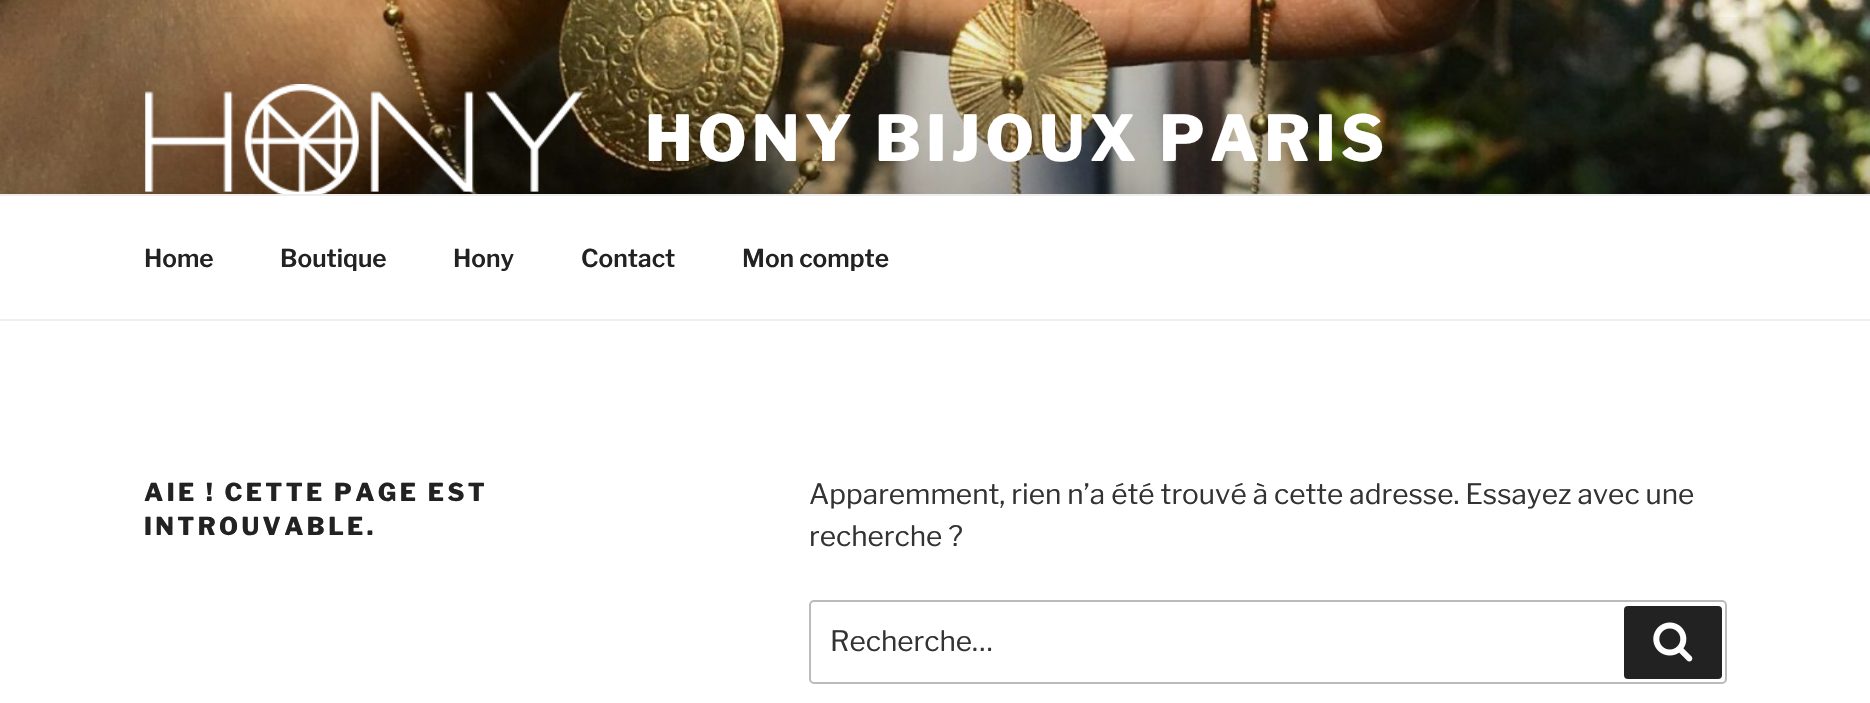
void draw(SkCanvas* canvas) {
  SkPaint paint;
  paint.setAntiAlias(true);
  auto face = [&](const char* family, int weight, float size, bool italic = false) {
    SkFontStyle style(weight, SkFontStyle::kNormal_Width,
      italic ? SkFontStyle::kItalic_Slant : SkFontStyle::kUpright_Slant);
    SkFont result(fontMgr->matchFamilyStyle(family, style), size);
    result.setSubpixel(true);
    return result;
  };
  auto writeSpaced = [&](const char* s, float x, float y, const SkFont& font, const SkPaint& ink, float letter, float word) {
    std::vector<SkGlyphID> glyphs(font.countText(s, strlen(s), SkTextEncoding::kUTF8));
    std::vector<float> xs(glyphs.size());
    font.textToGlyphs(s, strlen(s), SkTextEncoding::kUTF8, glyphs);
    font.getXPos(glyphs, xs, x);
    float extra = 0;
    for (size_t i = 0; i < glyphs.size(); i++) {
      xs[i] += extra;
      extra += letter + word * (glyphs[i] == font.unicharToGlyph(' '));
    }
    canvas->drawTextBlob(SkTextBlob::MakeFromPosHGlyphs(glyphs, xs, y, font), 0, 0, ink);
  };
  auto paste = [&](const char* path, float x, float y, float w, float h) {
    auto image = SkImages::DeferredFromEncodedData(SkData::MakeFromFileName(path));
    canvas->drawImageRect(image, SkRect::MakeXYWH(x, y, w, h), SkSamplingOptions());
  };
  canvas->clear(0xffffffff);
  paste("img/1.png", 0, 0, 1870, 194);
  {
    const SkColor colors[] = {0x00000000, 0x4d000000, 0x4d000000};
    const float stops[] = {0, 0.75f, 1};
    const SkPoint ends[] = {{935, 0}, {935, 320}};
    paint.setShader(SkGradientShader::MakeLinear(ends, colors, stops, 3, SkTileMode::kClamp));
    paint.setAlpha(255);
  }
  canvas->drawRect(SkRect::MakeXYWH(0, 17, 1870, 177), paint);
  paste("img/2.png", 145, 84, 438, 110);
  paint.setShader(nullptr);
  paint.setColor(0xffeeeeee);
  canvas->drawRect(SkRect::MakeXYWH(0, 194, 1870, 2), paint);
  canvas->drawRect(SkRect::MakeXYWH(0, 319, 1870, 2), paint);
  paint.setStroke(true);
  paint.setStrokeWidth(2);
  paint.setColor(0xffbbbbbb);
  canvas->drawRoundRect(SkRect::MakeXYWH(810, 601, 916, 82), 4, 4, paint);
  paint.setStroke(false);
  paint.setColor(0xff222222);
  canvas->drawRoundRect(SkRect::MakeXYWH(1624, 606, 98, 73), 4, 4, paint);
  paste("img/3.png", 1653, 622, 40, 40);
  auto f0 = face("Libre Franklin", 100, 63);
  paint.setColor(0xffffffff);
  writeSpaced("HONY BIJOUX PARIS", 645, 161, f0, paint, 5, 0);
  auto f1 = face("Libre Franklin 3", 100, 24.5f);
  paint.setColor(0xff222222);
  {
    const struct { const char* s; float x, y; } items[] = {
      {"Home", 144, 267},
      {"Boutique", 280, 267},
      {"Hony", 453, 267},
      {"Contact", 581, 267},
      {"Mon compte", 742, 267},
    };
    for (auto [s, x, y] : items) {
      canvas->drawString(s, x, y, f1, paint);
    }
  }
  auto f2 = face("Libre Franklin", 100, 24.5f);
  writeSpaced("AIE ! CETTE PAGE EST", 144, 501, f2, paint, 3.4f, 0);
  writeSpaced("INTROUVABLE.", 144, 535, f2, paint, 3.4f, 0);
  auto f3 = face("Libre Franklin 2", 100, 28);
  paint.setColor(0xff333333);
  {
    const struct { const char* s; float x, y; } items[] = {
      {"Apparemment, rien n’a été trouvé à cette adresse. Essayez avec une", 809, 504},
      {"recherche ?", 809, 546},
      {"Recherche…", 830, 651},
    };
    for (auto [s, x, y] : items) {
      canvas->drawString(s, x, y, f3, paint);
    }
  }
}
